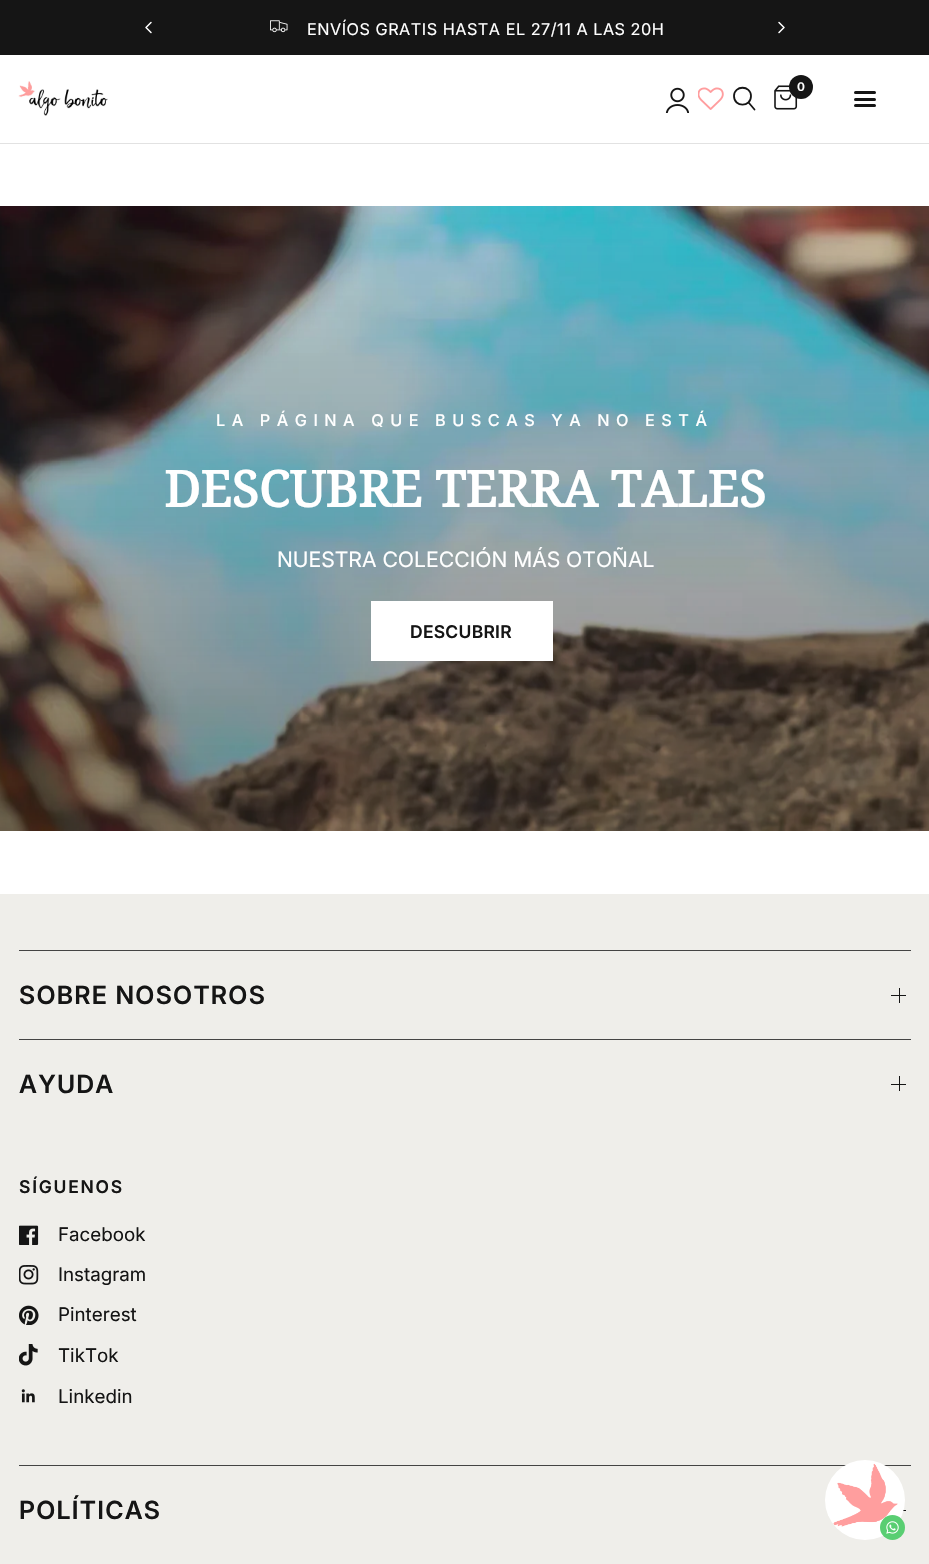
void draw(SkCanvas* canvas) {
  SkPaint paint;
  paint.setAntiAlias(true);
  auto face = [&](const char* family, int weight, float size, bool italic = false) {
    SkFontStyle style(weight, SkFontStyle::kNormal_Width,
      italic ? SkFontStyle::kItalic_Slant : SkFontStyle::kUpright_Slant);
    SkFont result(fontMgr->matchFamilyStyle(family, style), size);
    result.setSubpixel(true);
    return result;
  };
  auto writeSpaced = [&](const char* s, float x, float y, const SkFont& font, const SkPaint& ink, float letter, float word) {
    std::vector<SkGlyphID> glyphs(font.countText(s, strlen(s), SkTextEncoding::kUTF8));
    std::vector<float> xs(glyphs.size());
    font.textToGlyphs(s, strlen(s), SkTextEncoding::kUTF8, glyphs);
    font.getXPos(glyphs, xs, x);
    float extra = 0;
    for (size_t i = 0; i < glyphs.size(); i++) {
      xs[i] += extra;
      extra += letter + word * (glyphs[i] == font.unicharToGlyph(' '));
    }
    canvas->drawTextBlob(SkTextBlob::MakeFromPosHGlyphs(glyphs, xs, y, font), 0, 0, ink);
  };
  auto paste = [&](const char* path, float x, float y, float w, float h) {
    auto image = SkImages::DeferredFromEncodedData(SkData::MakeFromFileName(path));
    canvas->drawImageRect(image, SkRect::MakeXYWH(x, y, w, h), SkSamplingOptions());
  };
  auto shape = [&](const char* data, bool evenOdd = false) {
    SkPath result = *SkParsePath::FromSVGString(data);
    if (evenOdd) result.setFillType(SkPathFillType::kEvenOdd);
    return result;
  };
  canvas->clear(0xffffffff);
  paint.setColor(0xff151515);
  canvas->drawRect(SkRect::MakeXYWH(0, 0, 929, 55), paint);
  paint.setStroke(true);
  paint.setStrokeWidth(1.5f);
  paint.setStrokeCap(SkPaint::kRound_Cap);
  paint.setStrokeJoin(SkPaint::kRound_Join);
  paint.setColor(0xffffffff);
  canvas->drawPath(shape("M151 22.5L146 27.5L151 32.5"), paint);
  paste("img/1.png", 270, 20, 18, 13);
  canvas->drawPath(shape("M779 22.5L784 27.5L779 32.5"), paint);
  paint.setStroke(false);
  paint.setColor(0xffe2e2e2);
  canvas->drawRect(SkRect::MakeXYWH(0, 143, 929, 1), paint);
  paste("img/2.png", 18, 81, 90, 35);
  paste("img/3.png", 665, 87, 24, 26);
  paste("img/4.png", 698, 87, 26, 23);
  paint.setStroke(true);
  paint.setStrokeWidth(1.8f);
  paint.setColor(0xff151515);
  canvas->drawPath(shape("M749 103L754.5 109.5M751 96C751 107.5 734 107.5 734 96C734 85 751 85 751 96Z"), paint);
  paste("img/5.png", 774, 85, 24, 25);
  paint.setStroke(false);
  canvas->drawCircle(801, 87, 12, paint);
  canvas->drawRoundRect(SkRect::MakeXYWH(854, 91, 22, 3), 1.5f, 1.5f, paint);
  canvas->drawRoundRect(SkRect::MakeXYWH(854, 98, 22, 3), 1.5f, 1.5f, paint);
  canvas->drawRoundRect(SkRect::MakeXYWH(854, 104, 22, 3), 1.5f, 1.5f, paint);
  paste("img/6.png", 0, 206, 929, 625);
  {
    const struct { float x, y, w, h; SkColor color; } items[] = {
      {371, 601, 182, 60, 0xffffffff},
      {0, 894, 929, 670, 0xffefeeea},
      {19, 950, 892, 1, 0xff444444},
      {899, 988, 1, 15, 0xff151515},
      {891, 995, 15, 1, 0xff151515},
      {19, 1039, 892, 1, 0xff444444},
      {899, 1076, 1, 15, 0xff151515},
      {891, 1084, 15, 1, 0xff151515},
    };
    for (auto [x, y, w, h, color] : items) {
      paint.setColor(color);
      canvas->drawRect(SkRect::MakeXYWH(x, y, w, h), paint);
    }
  }
  paste("img/7.png", 19, 1225, 20, 20);
  paste("img/8.png", 19, 1265, 20, 20);
  paste("img/9.png", 19, 1305, 20, 20);
  paste("img/10.png", 19, 1344, 19, 22);
  paste("img/11.png", 21, 1389, 14, 14);
  paint.setColor(0xff444444);
  canvas->drawRect(SkRect::MakeXYWH(19, 1465, 892, 1), paint);
  paint.setColor(0xff151515);
  canvas->drawRect(SkRect::MakeXYWH(903, 1510, 3, 1), paint);
  paste("img/12.png", 825, 1460, 80, 80);
  paint.setColor(0xff59ce72);
  canvas->drawCircle(892.5f, 1527.5f, 12.5f, paint);
  paste("img/13.png", 886, 1521, 13, 13);
  auto f0 = face("Inter", 400, 16.25f);
  paint.setColor(0xffffffff);
  writeSpaced("ENVÍOS GRATIS HASTA EL 27/11 A LAS 20H", 307, 35, f0, paint, 0.5f, 0);
  auto f1 = face("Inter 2", 600, 12);
  canvas->drawString("0", 797, 91, f1, paint);
  auto f2 = face("Inter", 500, 16.25f);
  writeSpaced("LA PÁGINA QUE BUSCAS YA NO ESTÁ", 216, 426, f2, paint, 6.5f, -0.75f);
  auto f3 = face("Noto Serif", 700, 50);
  canvas->drawString("DESCUBRE TERRA TALES", 164, 507, f3, paint);
  auto f4 = face("Inter 2", 400, 21.25f);
  canvas->drawString("NUESTRA COLECCIÓN MÁS OTOÑAL", 277, 567, f4, paint);
  auto f5 = face("Inter 2", 600, 17.5f);
  paint.setColor(0xff151515);
  writeSpaced("DESCUBRIR", 410, 638, f5, paint, 0.25f, 0);
  auto f6 = face("Inter", 600, 25);
  writeSpaced("SOBRE NOSOTROS", 19, 1004, f6, paint, 1.25f, 0);
  writeSpaced("AYUDA", 19, 1093, f6, paint, 1.25f, 0);
  writeSpaced("SÍGUENOS", 19, 1193, f5, paint, 1.75f, 0);
  auto f7 = face("Inter", 400, 18.75f);
  {
    const struct { const char* s; float x, y; } items[] = {
      {"Facebook", 58, 1241},
      {"Instagram", 58, 1281},
      {"Pinterest", 58, 1321},
      {"TikTok", 58, 1362},
      {"Linkedin", 58, 1403},
    };
    for (auto [s, x, y] : items) {
      canvas->drawString(s, x, y, f7, paint);
    }
  }
  writeSpaced("POLÍTICAS", 19, 1519, f6, paint, 1.25f, 0);
}
